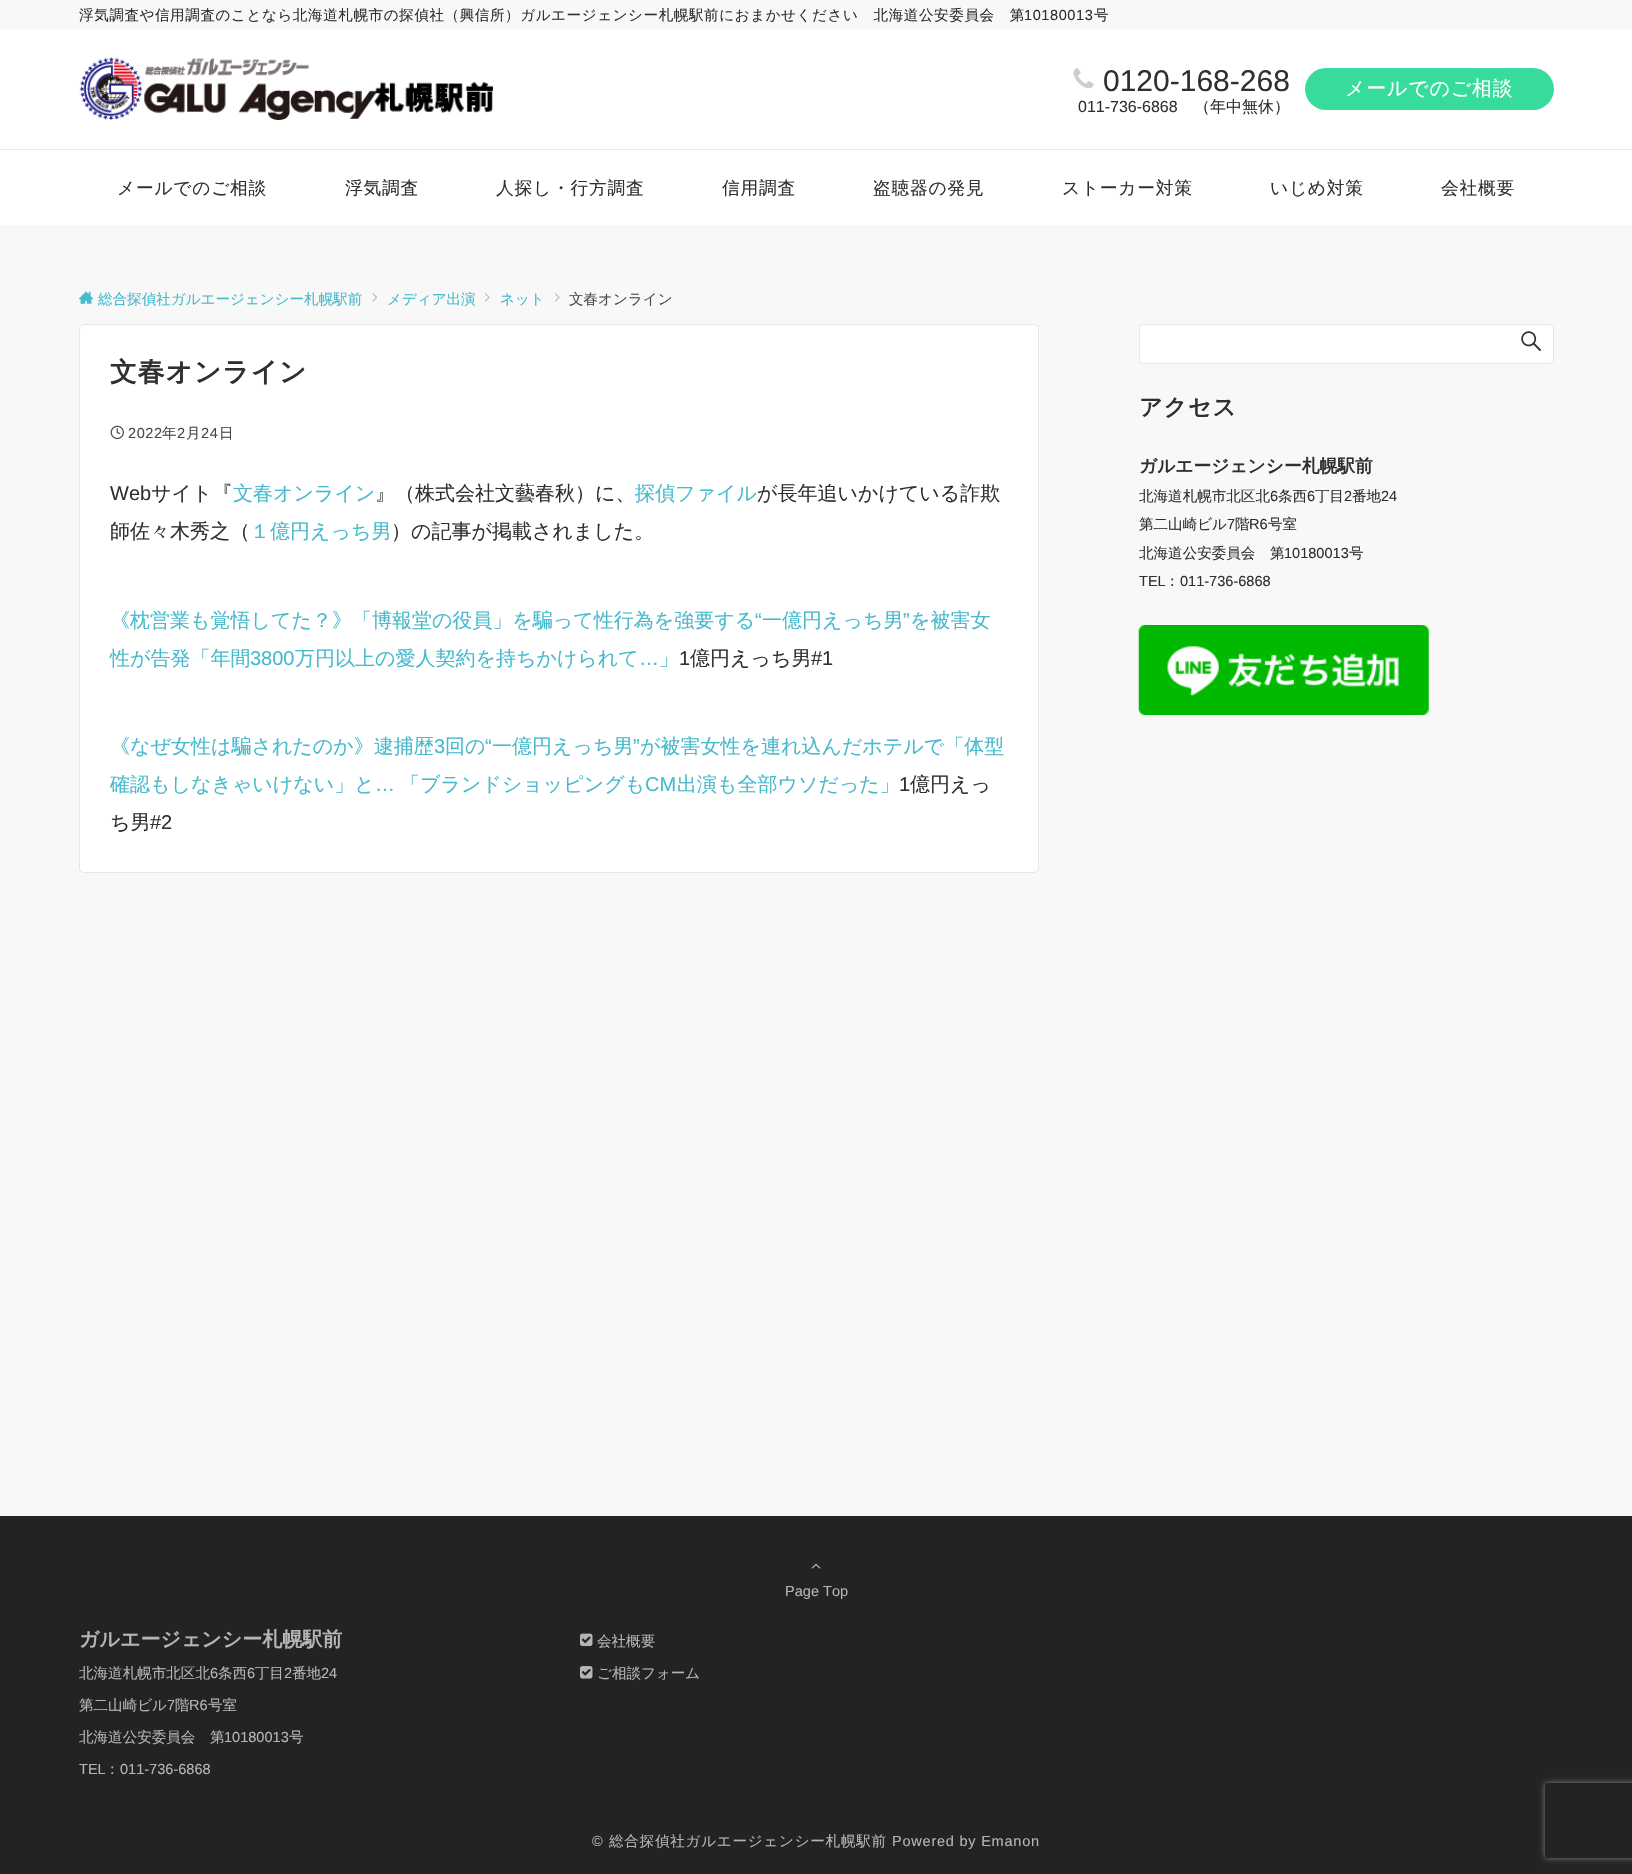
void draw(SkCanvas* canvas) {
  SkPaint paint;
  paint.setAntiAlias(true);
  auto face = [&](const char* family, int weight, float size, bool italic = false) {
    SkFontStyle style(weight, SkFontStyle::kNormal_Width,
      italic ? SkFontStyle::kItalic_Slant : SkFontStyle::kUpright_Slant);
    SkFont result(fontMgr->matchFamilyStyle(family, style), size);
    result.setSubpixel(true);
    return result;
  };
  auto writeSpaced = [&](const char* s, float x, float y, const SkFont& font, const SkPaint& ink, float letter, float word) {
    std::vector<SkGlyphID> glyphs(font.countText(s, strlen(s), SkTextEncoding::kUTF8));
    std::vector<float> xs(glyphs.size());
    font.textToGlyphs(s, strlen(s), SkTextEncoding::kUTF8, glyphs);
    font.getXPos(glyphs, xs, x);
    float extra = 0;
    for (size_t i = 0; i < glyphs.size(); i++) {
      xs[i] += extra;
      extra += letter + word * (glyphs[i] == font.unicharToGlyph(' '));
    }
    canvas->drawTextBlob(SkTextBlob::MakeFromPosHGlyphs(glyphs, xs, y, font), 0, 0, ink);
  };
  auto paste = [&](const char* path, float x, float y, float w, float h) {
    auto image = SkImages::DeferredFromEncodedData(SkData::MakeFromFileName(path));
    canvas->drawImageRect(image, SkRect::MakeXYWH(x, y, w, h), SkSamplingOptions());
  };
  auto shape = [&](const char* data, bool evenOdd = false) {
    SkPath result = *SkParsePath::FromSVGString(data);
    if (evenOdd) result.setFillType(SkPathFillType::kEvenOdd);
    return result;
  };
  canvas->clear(0xfff8f8f8);
  paint.setColor(0xffffffff);
  canvas->drawRect(SkRect::MakeXYWH(0, 29, 1632, 120), paint);
  paint.setColor(0xffe6e6e6);
  canvas->drawRect(SkRect::MakeXYWH(0, 149, 1632, 1), paint);
  paste("img/1.png", 79, 57, 414, 63);
  paste("img/2.png", 1073, 68, 21, 21);
  paint.setColor(0xff37db9b);
  canvas->drawRoundRect(SkRect::MakeXYWH(1305, 68, 249, 42), 21, 21, paint);
  paint.setColor(0xffffffff);
  canvas->drawRect(SkRect::MakeXYWH(0, 150, 1632, 75), paint);
  paste("img/3.png", 79, 291, 15, 13);
  paste("img/4.png", 372, 293, 6, 9);
  paste("img/5.png", 485, 293, 5, 9);
  paste("img/5.png", 555, 293, 5, 9);
  canvas->drawRoundRect(SkRect::MakeXYWH(79.5f, 324.5f, 959, 548), 4.5f, 4.5f, paint);
  paint.setStroke(true);
  paint.setStrokeWidth(1);
  paint.setColor(0xffe5e7e8);
  canvas->drawRoundRect(SkRect::MakeXYWH(79.5f, 324.5f, 959, 548), 4.5f, 4.5f, paint);
  paste("img/6.png", 110, 425, 14, 14);
  paint.setStroke(false);
  paint.setColor(0xffffffff);
  canvas->drawRoundRect(SkRect::MakeXYWH(1139.5f, 324.5f, 414, 39), 3.5f, 3.5f, paint);
  paint.setStroke(true);
  paint.setColor(0xffe5e7e8);
  canvas->drawRoundRect(SkRect::MakeXYWH(1139.5f, 324.5f, 414, 39), 3.5f, 3.5f, paint);
  paste("img/7.png", 1521, 331, 21, 21);
  paste("img/8.png", 1138, 625, 291, 90);
  paint.setStroke(false);
  paint.setColor(0xff232323);
  canvas->drawRect(SkRect::MakeXYWH(0, 1516, 1632, 358), paint);
  paste("img/9.png", 811, 1563, 10, 6);
  paste("img/10.png", 580, 1633, 13, 14);
  paste("img/11.png", 580, 1666, 13, 13);
  canvas->save();
  canvas->clipPath(shape("M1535 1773H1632V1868H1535ZM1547.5 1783H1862.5C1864 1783 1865 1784 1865 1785.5V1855.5C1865 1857 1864 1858 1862.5 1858H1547.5C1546 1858 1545 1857 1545 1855.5V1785.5C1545 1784 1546 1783 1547.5 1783Z", true), true);
  paint.setColor(0xff808080);
  paint.setMaskFilter(SkMaskFilter::MakeBlur(kNormal_SkBlurStyle, 3));
  canvas->drawRoundRect(SkRect::MakeXYWH(1545, 1783, 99, 75), 2.5f, 2.5f, paint);
  paint.setMaskFilter(nullptr);
  canvas->restore();
  auto f0 = face("WenQuanYi Zen Hei", 500, 14.55f);
  paint.setColor(0xff303030);
  writeSpaced("浮気調査や信用調査のことなら北海道札幌市の探偵社（興信所）ガルエージェンシー札幌駅前におまかせください　北海道公安委員会　第", 79, 20, f0, paint, 0.58f, 0);
  auto f1 = face("Liberation Sans", 400, 14.55f);
  writeSpaced("10180013", 1024, 20, f1, paint, 0.58f, 0);
  writeSpaced("号", 1094, 20, f0, paint, 0.58f, 0);
  auto f2 = face("Liberation Sans", 400, 30);
  canvas->drawString("0120-168-268", 1103, 91, f2, paint);
  auto f3 = face("Liberation Sans", 400, 16);
  canvas->drawString("011-736-6868", 1078, 112, f3, paint);
  auto f4 = face("WenQuanYi Zen Hei", 500, 16);
  canvas->drawString("（年中無休）", 1194, 112, f4, paint);
  auto f5 = face("WenQuanYi Zen Hei", 500, 20);
  paint.setColor(0xffffffff);
  writeSpaced("メールでのご相談", 1345, 95, f5, paint, 0.75f, 0);
  auto f6 = face("WenQuanYi Zen Hei", 500, 17.75f);
  paint.setColor(0xff303030);
  {
    const struct { const char* s; float x, y; } items[] = {
      {"メールでのご相談", 117, 194},
      {"浮気調査", 345, 194},
      {"人探し・行方調査", 496, 194},
      {"信用調査", 722, 194},
      {"盗聴器の発見", 873, 194},
      {"ストーカー対策", 1062, 194},
      {"いじめ対策", 1270, 194},
      {"会社概要", 1441, 194},
    };
    for (auto [s, x, y] : items) {
      writeSpaced(s, x, y, f6, paint, 0.75f, 0);
    }
  }
  paint.setColor(0xff47bacc);
  {
    const struct { const char* s; float x, y; } items[] = {
      {"総合探偵社ガルエージェンシー札幌駅前", 98, 304},
      {"メディア出演", 387, 304},
      {"ネット", 500, 304},
    };
    for (auto [s, x, y] : items) {
      canvas->drawString(s, x, y, f0, paint);
    }
  }
  paint.setColor(0xff484848);
  canvas->drawString("文春オンライン", 569, 304, f0, paint);
  auto f7 = face("WenQuanYi Zen Hei", 700, 26.75f);
  paint.setColor(0xff303030);
  writeSpaced("文春オンライン", 110, 381, f7, paint, 1, 0);
  paint.setColor(0xff484848);
  writeSpaced("2022", 128, 438, f1, paint, 0.58f, 0);
  writeSpaced("年", 162, 438, f0, paint, 0.58f, 0);
  writeSpaced("2", 177, 438, f1, paint, 0.58f, 0);
  writeSpaced("月", 186, 438, f0, paint, 0.58f, 0);
  writeSpaced("24", 201, 438, f1, paint, 0.58f, 0);
  writeSpaced("日", 219, 438, f0, paint, 0.58f, 0);
  auto f8 = face("Liberation Sans", 400, 20);
  paint.setColor(0xff303030);
  canvas->drawString("Web", 110, 500, f8, paint);
  canvas->drawString("サイト『", 151, 500, f5, paint);
  paint.setColor(0xff47bacc);
  canvas->drawString("文春オンライン", 233, 500, f5, paint);
  paint.setColor(0xff303030);
  canvas->drawString("』（株式会社文藝春秋）に、", 375, 500, f5, paint);
  paint.setColor(0xff47bacc);
  canvas->drawString("探偵ファイル", 635, 500, f5, paint);
  paint.setColor(0xff303030);
  canvas->drawString("が長年追いかけている詐欺", 757, 500, f5, paint);
  canvas->drawString("師佐々木秀之（", 110, 538, f5, paint);
  paint.setColor(0xff47bacc);
  canvas->drawString("１億円えっち男", 250, 538, f5, paint);
  paint.setColor(0xff303030);
  canvas->drawString("）の記事が掲載されました。", 391, 538, f5, paint);
  paint.setColor(0xff47bacc);
  canvas->drawString("《枕営業も覚悟してた？》「博報堂の役員」を騙って性行為を強要する", 110, 627, f5, paint);
  canvas->drawString("“", 755, 627, f8, paint);
  canvas->drawString("一億円えっち男", 762, 627, f5, paint);
  canvas->drawString("”", 903, 627, f8, paint);
  canvas->drawString("を被害女", 910, 627, f5, paint);
  canvas->drawString("性が告発「年間", 110, 665, f5, paint);
  canvas->drawString("3800", 250, 665, f8, paint);
  canvas->drawString("万円以上の愛人契約を持ちかけられて", 295, 665, f5, paint);
  canvas->drawString("…", 639, 665, f8, paint);
  canvas->drawString("」", 659, 665, f5, paint);
  paint.setColor(0xff303030);
  canvas->drawString("1", 679, 665, f8, paint);
  canvas->drawString("億円えっち男", 690, 665, f5, paint);
  canvas->drawString("#1", 811, 665, f8, paint);
  paint.setColor(0xff47bacc);
  canvas->drawString("《なぜ女性は騙されたのか》逮捕歴", 110, 753, f5, paint);
  canvas->drawString("3", 434, 753, f8, paint);
  canvas->drawString("回の", 445, 753, f5, paint);
  canvas->drawString("“", 485, 753, f8, paint);
  canvas->drawString("一億円えっち男", 492, 753, f5, paint);
  canvas->drawString("”", 633, 753, f8, paint);
  canvas->drawString("が被害女性を連れ込んだホテルで「体型", 640, 753, f5, paint);
  canvas->drawString("確認もしなきゃいけない」と", 110, 791, f5, paint);
  canvas->drawString("…", 375, 791, f8, paint);
  canvas->drawString("「ブランドショッピングも", 400, 791, f5, paint);
  canvas->drawString("CM", 645, 791, f8, paint);
  canvas->drawString("出演も全部ウソだった」", 677, 791, f5, paint);
  paint.setColor(0xff303030);
  canvas->drawString("1", 899, 791, f8, paint);
  canvas->drawString("億円えっ", 910, 791, f5, paint);
  canvas->drawString("ち男", 110, 829, f5, paint);
  canvas->drawString("#2", 150, 829, f8, paint);
  auto f9 = face("WenQuanYi Zen Hei", 700, 23);
  writeSpaced("アクセス", 1139, 415, f9, paint, 1, 0);
  auto f10 = face("WenQuanYi Zen Hei", 700, 17.75f);
  canvas->drawString("ガルエージェンシー札幌駅前", 1139, 472, f10, paint);
  canvas->drawString("北海道札幌市北区北", 1139, 501, f0, paint);
  canvas->drawString("6", 1270, 501, f1, paint);
  canvas->drawString("条西", 1278, 501, f0, paint);
  canvas->drawString("6", 1307, 501, f1, paint);
  canvas->drawString("丁目", 1315, 501, f0, paint);
  canvas->drawString("2", 1344, 501, f1, paint);
  canvas->drawString("番地", 1352, 501, f0, paint);
  canvas->drawString("24", 1381, 501, f1, paint);
  canvas->drawString("第二山崎ビル", 1139, 529, f0, paint);
  canvas->drawString("7", 1227, 529, f1, paint);
  canvas->drawString("階", 1235, 529, f0, paint);
  canvas->drawString("R6", 1249, 529, f1, paint);
  canvas->drawString("号室", 1268, 529, f0, paint);
  canvas->drawString("北海道公安委員会　第", 1139, 558, f0, paint);
  canvas->drawString("10180013", 1284, 558, f1, paint);
  canvas->drawString("号", 1349, 558, f0, paint);
  canvas->drawString("TEL", 1139, 586, f1, paint);
  canvas->drawString("：", 1165, 586, f0, paint);
  canvas->drawString("011-736-6868", 1180, 586, f1, paint);
  paint.setColor(0xffb5b5b5);
  canvas->drawString("Page Top", 785, 1596, f1, paint);
  auto f11 = face("WenQuanYi Zen Hei", 700, 20);
  canvas->drawString("ガルエージェンシー札幌駅前", 79, 1646, f11, paint);
  canvas->drawString("北海道札幌市北区北", 79, 1678, f0, paint);
  canvas->drawString("6", 210, 1678, f1, paint);
  canvas->drawString("条西", 218, 1678, f0, paint);
  canvas->drawString("6", 247, 1678, f1, paint);
  canvas->drawString("丁目", 255, 1678, f0, paint);
  canvas->drawString("2", 284, 1678, f1, paint);
  canvas->drawString("番地", 292, 1678, f0, paint);
  canvas->drawString("24", 321, 1678, f1, paint);
  canvas->drawString("第二山崎ビル", 79, 1710, f0, paint);
  canvas->drawString("7", 167, 1710, f1, paint);
  canvas->drawString("階", 175, 1710, f0, paint);
  canvas->drawString("R6", 189, 1710, f1, paint);
  canvas->drawString("号室", 208, 1710, f0, paint);
  canvas->drawString("北海道公安委員会　第", 79, 1742, f0, paint);
  canvas->drawString("10180013", 224, 1742, f1, paint);
  canvas->drawString("号", 289, 1742, f0, paint);
  canvas->drawString("TEL", 79, 1774, f1, paint);
  canvas->drawString("：", 105, 1774, f0, paint);
  canvas->drawString("011-736-6868", 120, 1774, f1, paint);
  canvas->drawString("会社概要", 597, 1646, f0, paint);
  canvas->drawString("ご相談フォーム", 597, 1678, f0, paint);
  writeSpaced("©", 592, 1846, f1, paint, 0.75f, 0);
  writeSpaced("総合探偵社ガルエージェンシー札幌駅前", 609, 1846, f0, paint, 0.75f, 0);
  writeSpaced("Powered by Emanon", 892, 1846, f1, paint, 0.75f, 0);
}
